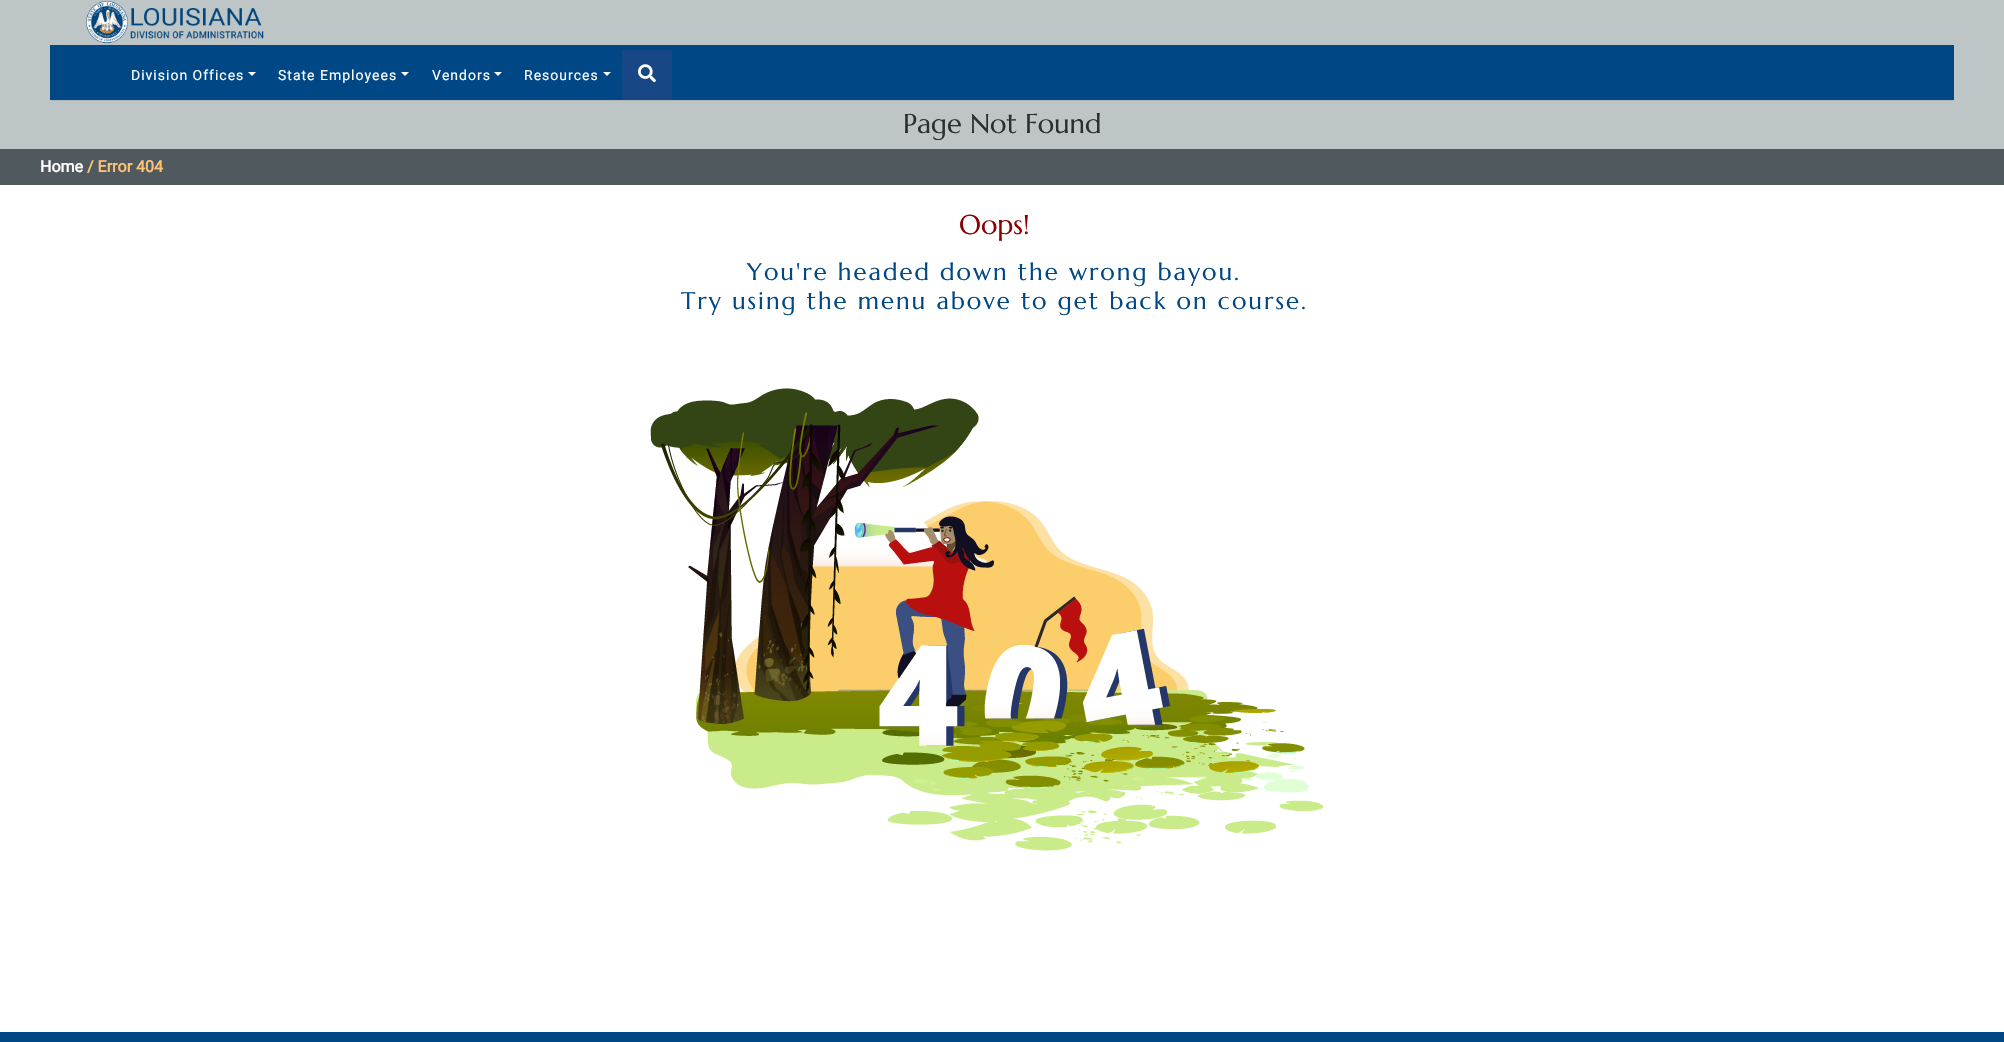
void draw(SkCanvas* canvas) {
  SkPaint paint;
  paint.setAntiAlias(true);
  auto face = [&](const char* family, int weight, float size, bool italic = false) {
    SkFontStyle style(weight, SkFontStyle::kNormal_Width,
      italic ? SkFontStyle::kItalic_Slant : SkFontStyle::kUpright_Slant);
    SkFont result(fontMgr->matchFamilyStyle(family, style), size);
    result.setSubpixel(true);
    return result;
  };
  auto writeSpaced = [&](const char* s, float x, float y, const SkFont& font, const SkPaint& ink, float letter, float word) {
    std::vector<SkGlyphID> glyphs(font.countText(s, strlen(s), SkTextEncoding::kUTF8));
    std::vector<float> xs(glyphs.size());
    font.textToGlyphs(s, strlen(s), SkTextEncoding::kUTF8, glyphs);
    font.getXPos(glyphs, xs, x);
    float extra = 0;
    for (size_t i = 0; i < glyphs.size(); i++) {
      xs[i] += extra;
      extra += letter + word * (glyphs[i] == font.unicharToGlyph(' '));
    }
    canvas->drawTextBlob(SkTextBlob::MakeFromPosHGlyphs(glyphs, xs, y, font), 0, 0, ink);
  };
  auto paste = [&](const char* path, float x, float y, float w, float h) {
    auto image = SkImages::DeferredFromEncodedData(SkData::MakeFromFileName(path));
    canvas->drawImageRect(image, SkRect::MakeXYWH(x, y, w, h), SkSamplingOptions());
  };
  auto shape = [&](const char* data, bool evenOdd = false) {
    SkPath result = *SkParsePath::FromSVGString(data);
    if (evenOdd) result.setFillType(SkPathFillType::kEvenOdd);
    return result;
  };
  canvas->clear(0xffffffff);
  paint.setColor(0xffbec5c7);
  canvas->drawRect(SkRect::MakeXYWH(0, 0, 2004, 149), paint);
  paste("img/1.png", 85, 0, 179, 43);
  paint.setColor(0xffafb5b7);
  canvas->drawRect(SkRect::MakeXYWH(51, 100, 1902, 1), paint);
  paint.setColor(0xff004785);
  canvas->drawRect(SkRect::MakeXYWH(50, 45, 1904, 55), paint);
  paint.setColor(0xffffffff);
  canvas->drawPath(shape("M248 72H256L252 76Z"), paint);
  canvas->drawPath(shape("M401 72H409L405 76Z"), paint);
  canvas->drawPath(shape("M494 72H502L498 76Z"), paint);
  canvas->drawPath(shape("M603 72H611L607 76Z"), paint);
  paint.setColor(0xff184785);
  canvas->drawRect(SkRect::MakeXYWH(626, 54, 42, 42), paint);
  paint.setStroke(true);
  paint.setStrokeWidth(4);
  canvas->drawPath(shape("M624 52H670V98H624Z"), paint);
  paste("img/2.png", 638, 64, 18, 19);
  paint.setStroke(false);
  paint.setColor(0xff50595e);
  canvas->drawRect(SkRect::MakeXYWH(0, 149, 2004, 36), paint);
  paste("img/3.png", 650, 388, 674, 463);
  paint.setColor(0xff004885);
  canvas->drawRect(SkRect::MakeXYWH(0, 1032, 2004, 10), paint);
  auto f0 = face("Roboto", 400, 14);
  paint.setColor(0xffffffff);
  {
    const struct { const char* s; float x, y; } items[] = {
      {"Division Offices", 131, 80},
      {"State Employees", 278, 80},
      {"Vendors", 432, 80},
      {"Resources", 524, 80},
    };
    for (auto [s, x, y] : items) {
      writeSpaced(s, x, y, f0, paint, 1, 0);
    }
  }
  auto f1 = face("Marcellus", 400, 27.25f);
  paint.setColor(0xff2b2f31);
  canvas->drawString("Page Not Found", 903, 133, f1, paint);
  auto f2 = face("Roboto", 700, 16);
  paint.setColor(0xffffffff);
  canvas->drawString("Home", 40, 172, f2, paint);
  paint.setColor(0xfffdc377);
  canvas->drawString("/ Error 404", 87, 172, f2, paint);
  paint.setColor(0xff8b0000);
  canvas->drawString("Oops!", 959, 234, f1, paint);
  auto f3 = face("Marcellus", 400, 24);
  paint.setColor(0xff004785);
  writeSpaced("You're headed down the wrong bayou.", 747, 280, f3, paint, 2, 0);
  writeSpaced("Try using the menu above to get back on course.", 681, 309, f3, paint, 2, 0);
}
